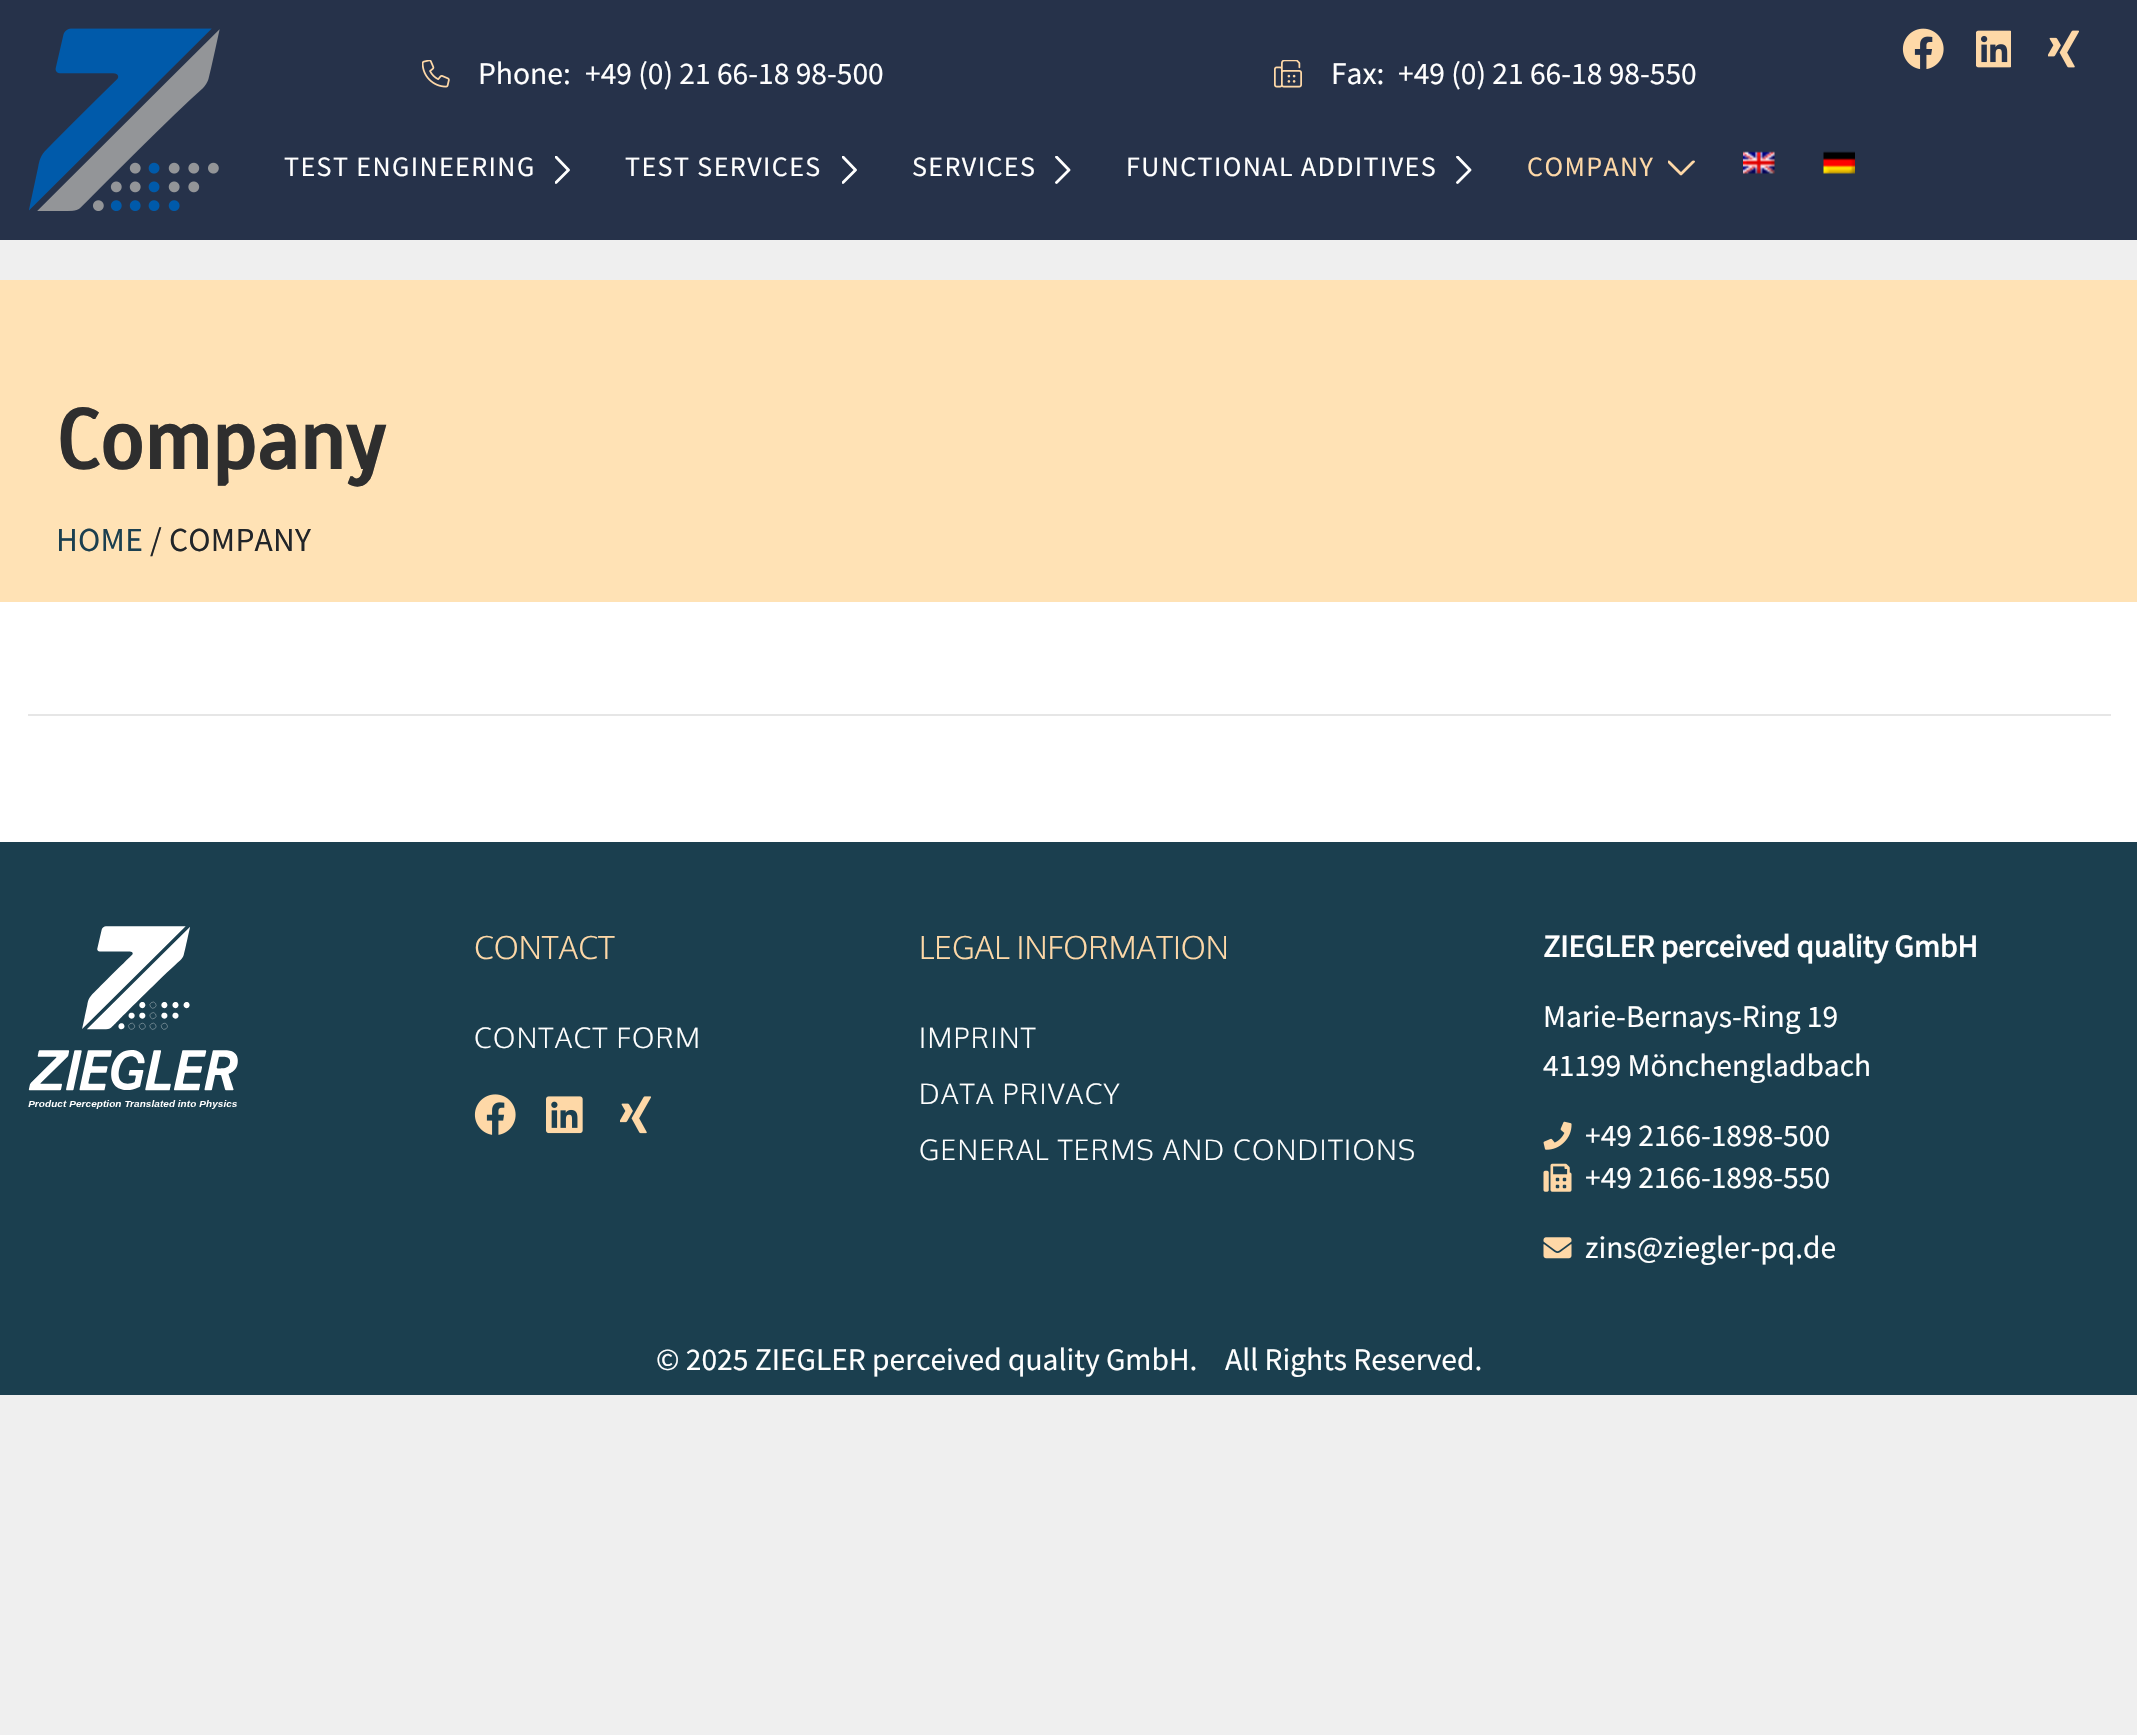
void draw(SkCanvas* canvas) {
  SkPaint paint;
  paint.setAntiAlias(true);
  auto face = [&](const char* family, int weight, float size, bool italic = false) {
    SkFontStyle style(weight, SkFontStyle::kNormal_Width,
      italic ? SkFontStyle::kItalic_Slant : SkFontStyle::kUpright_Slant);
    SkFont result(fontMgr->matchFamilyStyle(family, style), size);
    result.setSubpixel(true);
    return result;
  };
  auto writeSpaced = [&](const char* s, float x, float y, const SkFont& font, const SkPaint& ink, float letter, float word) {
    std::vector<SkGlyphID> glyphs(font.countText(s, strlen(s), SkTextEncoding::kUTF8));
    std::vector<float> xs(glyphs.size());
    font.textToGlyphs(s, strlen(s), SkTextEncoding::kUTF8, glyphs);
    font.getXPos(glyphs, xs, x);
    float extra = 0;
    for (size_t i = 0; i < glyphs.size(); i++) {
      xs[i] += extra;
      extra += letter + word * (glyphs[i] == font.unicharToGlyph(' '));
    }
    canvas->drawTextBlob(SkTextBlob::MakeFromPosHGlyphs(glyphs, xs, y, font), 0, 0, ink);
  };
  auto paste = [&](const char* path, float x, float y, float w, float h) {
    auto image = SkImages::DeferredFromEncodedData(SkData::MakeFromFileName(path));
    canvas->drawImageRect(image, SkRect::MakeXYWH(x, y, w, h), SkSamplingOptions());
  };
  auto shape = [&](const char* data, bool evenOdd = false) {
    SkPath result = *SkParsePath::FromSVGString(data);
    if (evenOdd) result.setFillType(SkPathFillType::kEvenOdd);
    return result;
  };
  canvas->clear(0xffefefef);
  paint.setColor(0xffffffff);
  canvas->drawRect(SkRect::MakeXYWH(0, 602, 2137, 240), paint);
  paint.setColor(0xff26324a);
  canvas->drawRect(SkRect::MakeXYWH(0, 0, 2137, 240), paint);
  paste("img/1.png", 29, 28, 191, 183);
  paste("img/2.png", 1902, 28, 42, 41);
  paste("img/3.png", 1976, 30, 35, 38);
  paste("img/4.png", 2048, 30, 31, 38);
  paste("img/5.png", 422, 60, 28, 28);
  paste("img/6.png", 1274, 60, 28, 28);
  canvas->save();
  canvas->clipRect(SkRect::MakeXYWH(555, 156, 17, 28));
  paint.setStroke(true);
  paint.setStrokeWidth(2.8f);
  paint.setStrokeCap(SkPaint::kRound_Cap);
  paint.setStrokeJoin(SkPaint::kRound_Join);
  paint.setColor(0xffffffff);
  canvas->drawPath(shape("M556 157L568.5 170L556 182.5"), paint);
  canvas->restore();
  canvas->save();
  canvas->clipRect(SkRect::MakeXYWH(842, 156, 16, 28));
  canvas->drawPath(shape("M843 157L855.5 170L843 182.5"), paint);
  canvas->restore();
  canvas->save();
  canvas->clipRect(SkRect::MakeXYWH(1055, 156, 18, 28));
  canvas->drawPath(shape("M1056.5 157L1069 170L1056.5 182.5"), paint);
  canvas->restore();
  canvas->save();
  canvas->clipRect(SkRect::MakeXYWH(1456, 156, 18, 28));
  canvas->drawPath(shape("M1457.5 157L1470 170L1457.5 182.5"), paint);
  canvas->restore();
  canvas->save();
  canvas->clipPath(shape("M1696 160.5V177.5H1668V160.5Z"), true);
  paint.setColor(0xfffed8a7);
  canvas->drawPath(shape("M1693.5 161.5L1681 174L1668.5 161.5"), paint);
  canvas->restore();
  paste("img/7.png", 1743, 151, 32, 23);
  paste("img/8.png", 1823, 151, 32, 23);
  paint.setStroke(false);
  {
    const struct { float x, y, w, h; SkColor color; } items[] = {
      {0, 280, 2137, 322, 0xffffe2b5},
      {28, 714, 2083, 2, 0xffe6e6e6},
      {0, 842, 2137, 553, 0xff1b3f4f},
    };
    for (auto [x, y, w, h, color] : items) {
      paint.setColor(color);
      canvas->drawRect(SkRect::MakeXYWH(x, y, w, h), paint);
    }
  }
  paste("img/9.png", 28, 926, 210, 183);
  paste("img/10.png", 474, 1094, 42, 41);
  paste("img/11.png", 546, 1096, 37, 38);
  paste("img/12.png", 620, 1096, 31, 38);
  paste("img/13.png", 1543, 1121, 29, 29);
  paste("img/14.png", 1543, 1163, 29, 29);
  paste("img/15.png", 1543, 1237, 29, 22);
  auto f0 = face("Source Sans Pro", 400, 31.5f);
  paint.setColor(0xffffffff);
  {
    const struct { const char* s; float x, y; } items[] = {
      {"Phone:", 478, 84},
      {"+49 (0) 21 66-18 98-500", 585, 84},
      {"Fax:", 1331, 84},
      {"+49 (0) 21 66-18 98-550", 1398, 84},
    };
    for (auto [s, x, y] : items) {
      canvas->drawString(s, x, y, f0, paint);
    }
  }
  auto f1 = face("Source Sans Pro", 400, 28);
  {
    const struct { const char* s; float x, y; } items[] = {
      {"TEST ENGINEERING", 284, 176},
      {"TEST SERVICES", 625, 176},
      {"SERVICES", 912, 176},
      {"FUNCTIONAL ADDITIVES", 1126, 176},
    };
    for (auto [s, x, y] : items) {
      writeSpaced(s, x, y, f1, paint, 1.4f, 0);
    }
  }
  paint.setColor(0xfffed8a7);
  writeSpaced("COMPANY", 1527, 176, f1, paint, 1.4f, 0);
  auto f2 = face("Scada", 700, 84);
  paint.setColor(0xff2e2e2e);
  canvas->drawString("Company", 56, 469, f2, paint);
  auto f3 = face("Source Sans Pro", 400, 33.5f);
  paint.setColor(0xff1b3f4f);
  writeSpaced("HOME", 56, 551, f3, paint, 0.25f, 0);
  paint.setColor(0xff212529);
  writeSpaced("/ COMPANY", 150, 551, f3, paint, 0.25f, 0);
  auto f4 = face("Oxygen", 300, 31.5f);
  paint.setColor(0xfffed8a7);
  canvas->drawString("CONTACT", 474, 959, f4, paint);
  auto f5 = face("Oxygen", 300, 28);
  paint.setColor(0xffffffff);
  writeSpaced("CONTACT FORM", 474, 1048, f5, paint, 1.4f, 0);
  paint.setColor(0xfffed8a7);
  canvas->drawString("LEGAL INFORMATION", 919, 959, f4, paint);
  paint.setColor(0xffffffff);
  {
    const struct { const char* s; float x, y; } items[] = {
      {"IMPRINT", 919, 1048},
      {"DATA PRIVACY", 919, 1104},
      {"GENERAL TERMS AND CONDITIONS", 919, 1160},
    };
    for (auto [s, x, y] : items) {
      writeSpaced(s, x, y, f5, paint, 1.4f, 0);
    }
  }
  auto f6 = face("Source Sans Pro", 700, 31.5f);
  canvas->drawString("ZIEGLER perceived quality GmbH", 1543, 957, f6, paint);
  {
    const struct { const char* s; float x, y; } items[] = {
      {"Marie-Bernays-Ring 19", 1543, 1027},
      {"41199 Mönchengladbach", 1543, 1076},
      {"+49 2166-1898-500", 1585, 1146},
      {"+49 2166-1898-550", 1585, 1188},
      {"zins@ziegler-pq.de", 1585, 1258},
      {"© 2025 ZIEGLER perceived quality GmbH.", 656, 1370},
      {"All Rights Reserved.", 1225, 1370},
    };
    for (auto [s, x, y] : items) {
      canvas->drawString(s, x, y, f0, paint);
    }
  }
}
